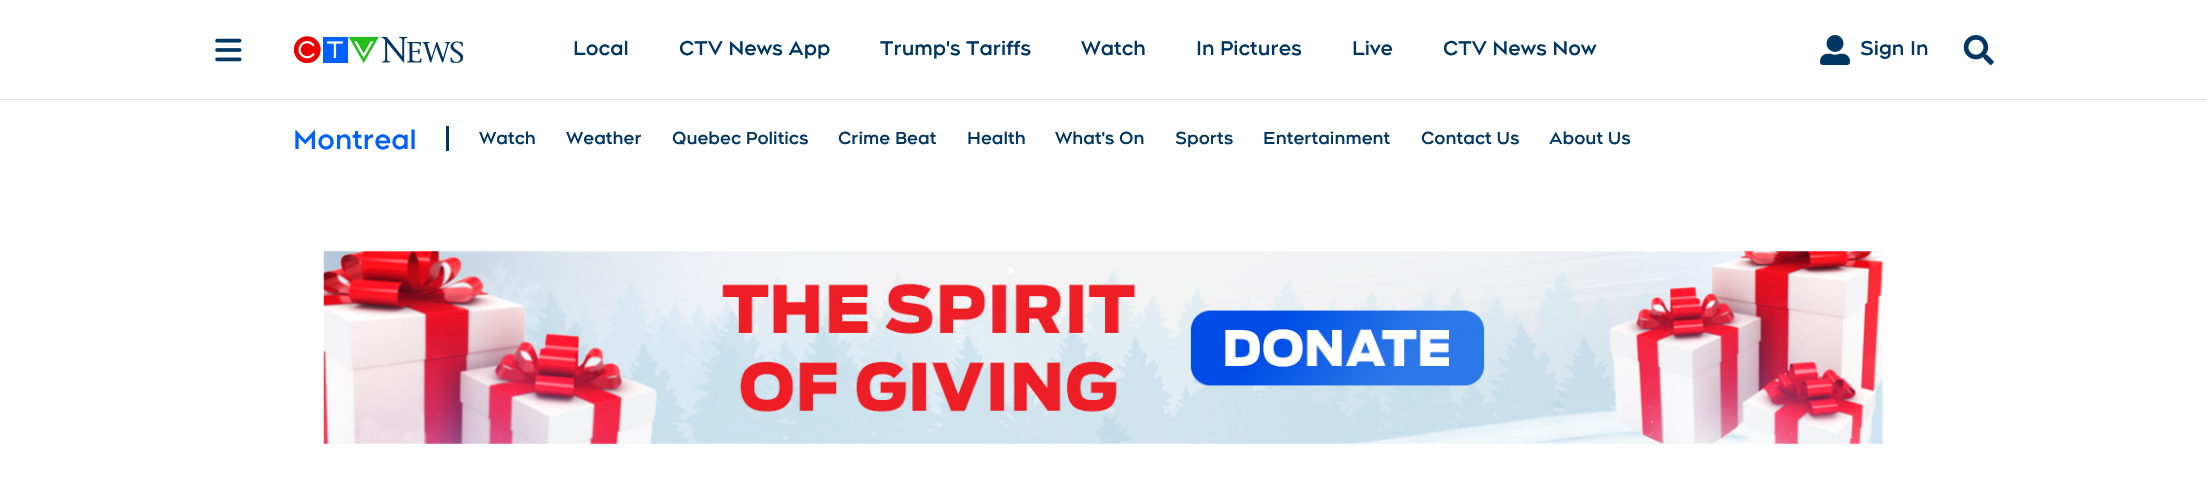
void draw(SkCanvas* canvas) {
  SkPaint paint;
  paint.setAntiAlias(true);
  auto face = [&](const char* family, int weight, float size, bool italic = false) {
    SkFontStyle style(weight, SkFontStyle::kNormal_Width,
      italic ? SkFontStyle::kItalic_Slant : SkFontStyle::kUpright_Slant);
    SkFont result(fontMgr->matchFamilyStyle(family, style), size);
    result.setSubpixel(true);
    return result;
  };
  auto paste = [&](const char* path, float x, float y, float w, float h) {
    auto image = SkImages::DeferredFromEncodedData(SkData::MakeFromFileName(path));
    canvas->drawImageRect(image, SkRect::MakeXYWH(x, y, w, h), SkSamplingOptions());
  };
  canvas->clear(0xffffffff);
  paint.setColor(0xffdddddd);
  canvas->drawRect(SkRect::MakeXYWH(0, 99, 2206, 1), paint);
  paste("img/1.png", 215, 38, 27, 24);
  paste("img/2.png", 294, 36, 169, 27);
  paste("img/3.png", 1820, 35, 30, 30);
  paste("img/4.png", 1963, 35, 31, 30);
  paint.setColor(0xff003662);
  canvas->drawRect(SkRect::MakeXYWH(446, 126, 3, 25), paint);
  paste("img/5.png", 323, 251, 1560, 193);
  auto f0 = face("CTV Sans", 700, 20);
  {
    const struct { const char* s; float x, y; } items[] = {
      {"Local", 573, 55},
      {"CTV News App", 679, 55},
      {"Trump's Tariffs", 880, 55},
      {"Watch", 1081, 55},
      {"In Pictures", 1196, 55},
      {"Live", 1352, 55},
      {"CTV News Now", 1443, 55},
      {"Sign In", 1860, 55},
    };
    for (auto [s, x, y] : items) {
      canvas->drawString(s, x, y, f0, paint);
    }
  }
  auto f1 = face("CTV Sans", 700, 27.5f);
  paint.setColor(0xff005fff);
  canvas->drawString("Montreal", 293, 149, f1, paint);
  auto f2 = face("CTV Sans", 700, 17.5f);
  paint.setColor(0xff003662);
  {
    const struct { const char* s; float x, y; } items[] = {
      {"Watch", 479, 144},
      {"Weather", 566, 144},
      {"Quebec Politics", 672, 144},
      {"Crime Beat", 838, 144},
      {"Health", 967, 144},
      {"What's On", 1055, 144},
      {"Sports", 1175, 144},
      {"Entertainment", 1263, 144},
      {"Contact Us", 1421, 144},
      {"About Us", 1549, 144},
    };
    for (auto [s, x, y] : items) {
      canvas->drawString(s, x, y, f2, paint);
    }
  }
}
